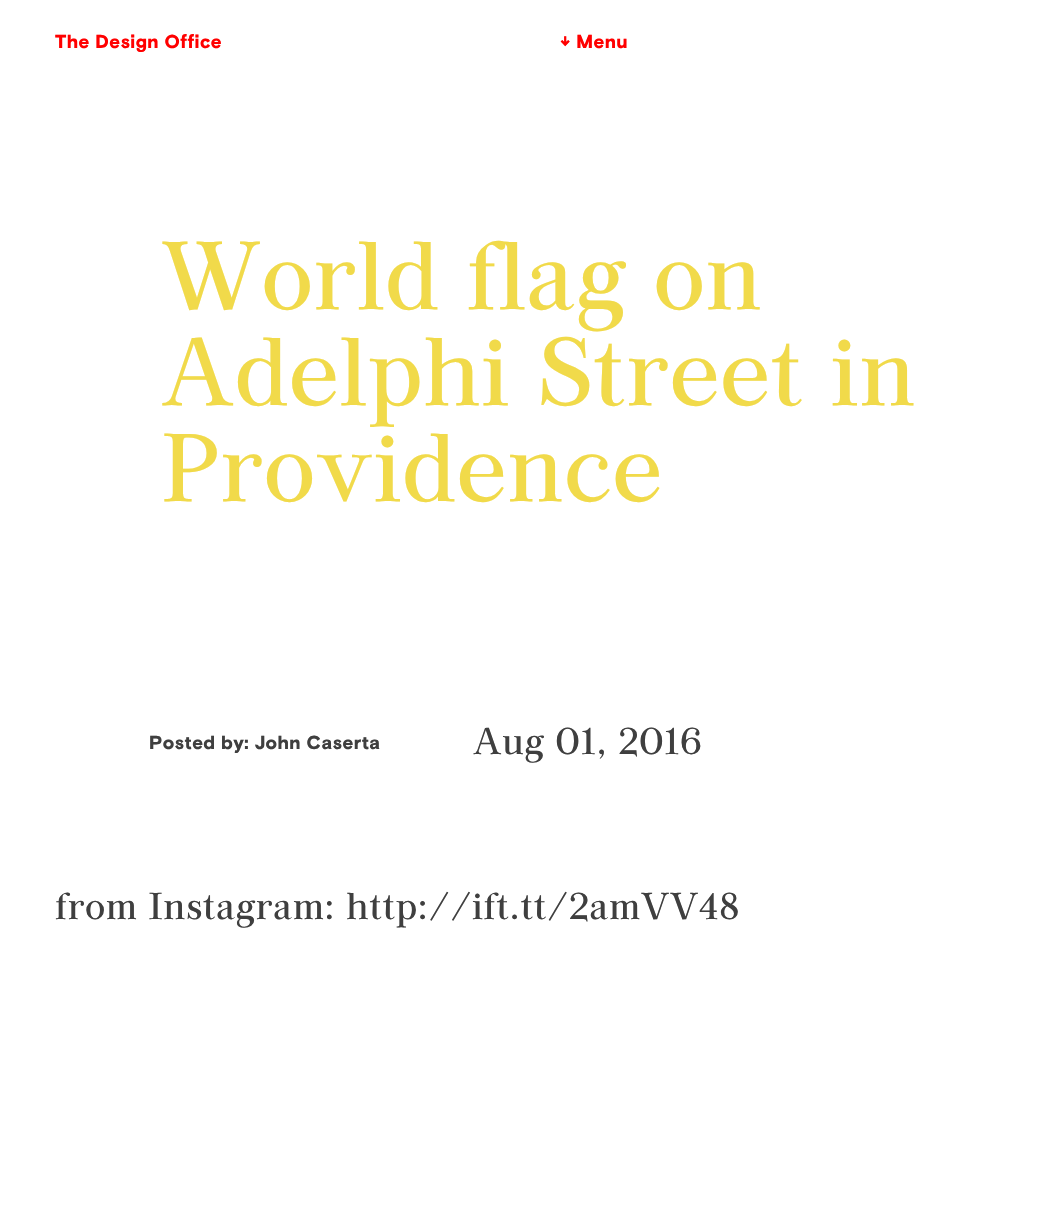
void draw(SkCanvas* canvas) {
  SkPaint paint;
  paint.setAntiAlias(true);
  auto face = [&](const char* family, int weight, float size, bool italic = false) {
    SkFontStyle style(weight, SkFontStyle::kNormal_Width,
      italic ? SkFontStyle::kItalic_Slant : SkFontStyle::kUpright_Slant);
    SkFont result(fontMgr->matchFamilyStyle(family, style), size);
    result.setSubpixel(true);
    return result;
  };
  auto writeSpaced = [&](const char* s, float x, float y, const SkFont& font, const SkPaint& ink, float letter, float word) {
    std::vector<SkGlyphID> glyphs(font.countText(s, strlen(s), SkTextEncoding::kUTF8));
    std::vector<float> xs(glyphs.size());
    font.textToGlyphs(s, strlen(s), SkTextEncoding::kUTF8, glyphs);
    font.getXPos(glyphs, xs, x);
    float extra = 0;
    for (size_t i = 0; i < glyphs.size(); i++) {
      xs[i] += extra;
      extra += letter + word * (glyphs[i] == font.unicharToGlyph(' '));
    }
    canvas->drawTextBlob(SkTextBlob::MakeFromPosHGlyphs(glyphs, xs, y, font), 0, 0, ink);
  };
  canvas->clear(0xffffffff);
  auto f0 = face("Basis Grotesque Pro", 900, 18.75f);
  paint.setColor(0xffff0000);
  writeSpaced("The Design Office", 55, 48, f0, paint, 0.4f, 0);
  writeSpaced("↓ Menu", 560, 48, f0, paint, 0.4f, 0);
  auto f1 = face("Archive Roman", 400, 96.25f);
  paint.setColor(0xfff1da4a);
  {
    const struct { const char* s; float x, y; } items[] = {
      {"World flag on", 161, 309},
      {"Adelphi Street in", 161, 405},
      {"Providence", 161, 501},
    };
    for (auto [s, x, y] : items) {
      canvas->drawString(s, x, y, f1, paint);
    }
  }
  paint.setColor(0xff3f3f3f);
  writeSpaced("Posted by: John Caserta", 149, 749, f0, paint, 0.4f, 0);
  auto f2 = face("Archive Roman", 400, 37.5f);
  writeSpaced("Aug 01, 2016", 473, 754, f2, paint, 0.4f, 0);
  writeSpaced("from Instagram: http://ift.tt/2amVV48", 55, 919, f2, paint, 0.4f, 0);
}
